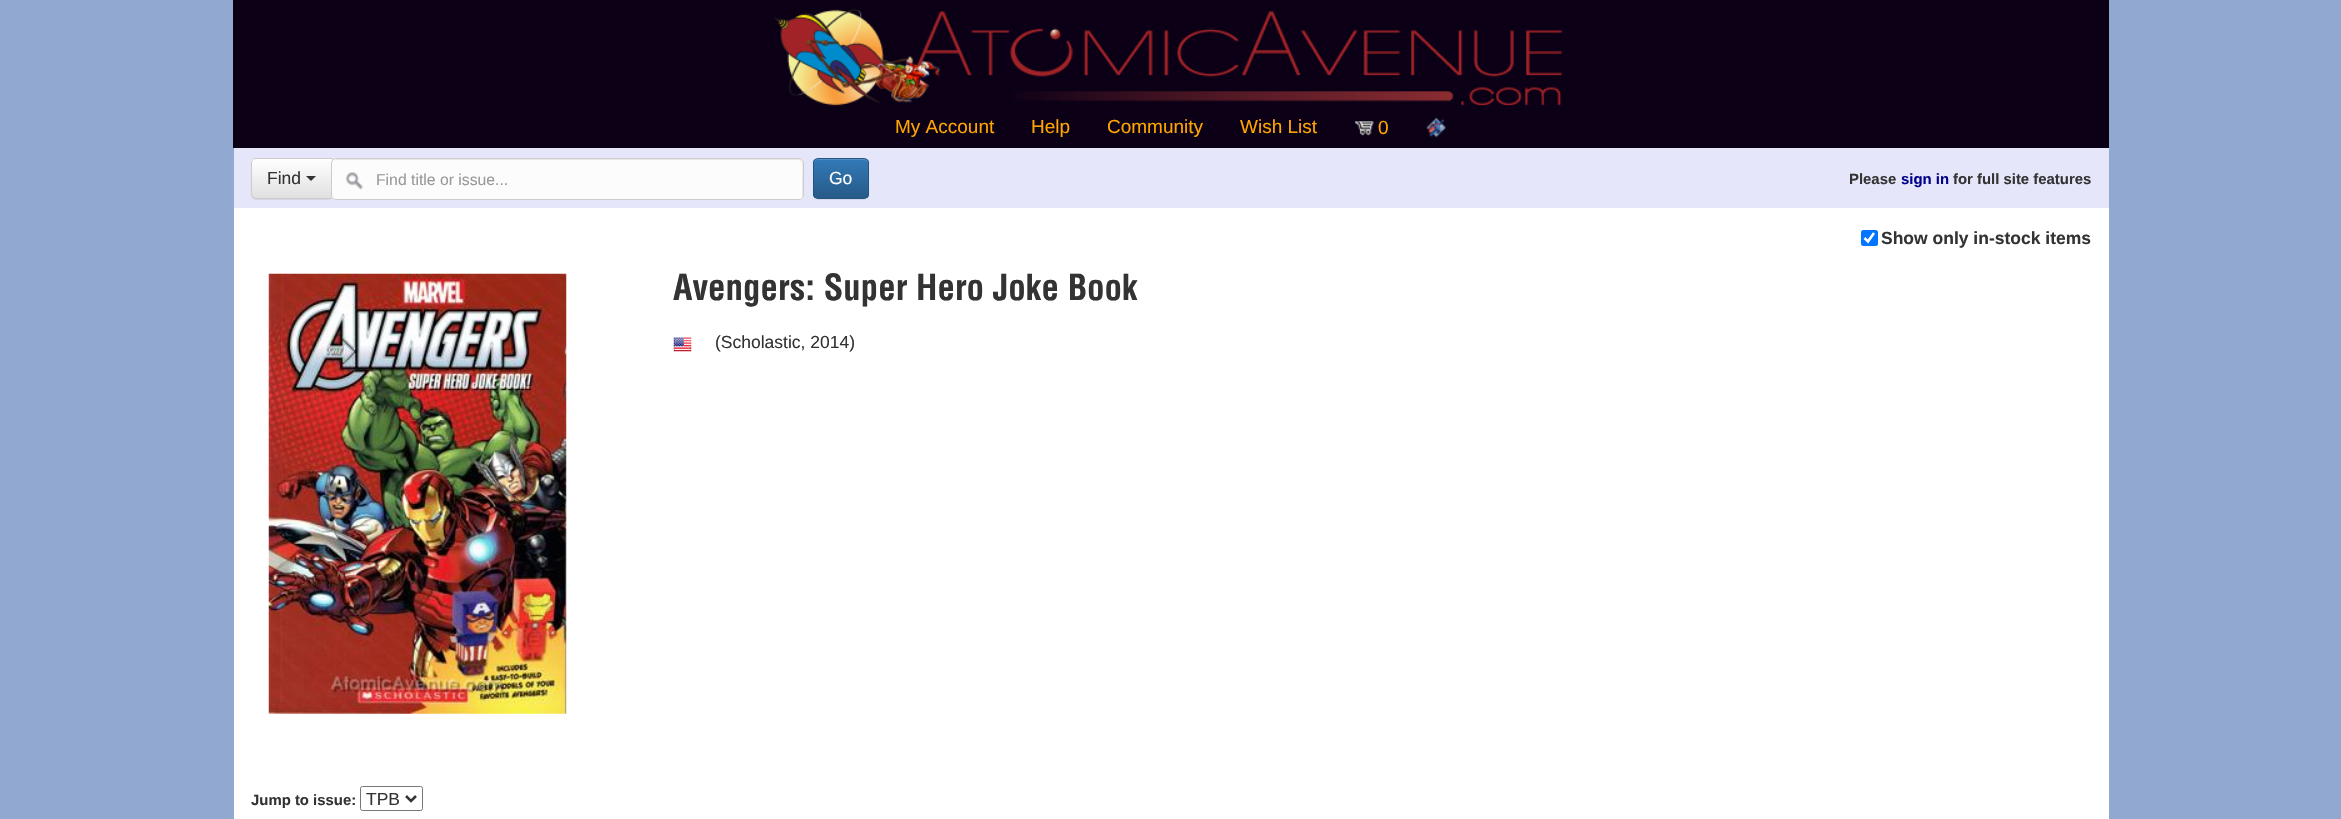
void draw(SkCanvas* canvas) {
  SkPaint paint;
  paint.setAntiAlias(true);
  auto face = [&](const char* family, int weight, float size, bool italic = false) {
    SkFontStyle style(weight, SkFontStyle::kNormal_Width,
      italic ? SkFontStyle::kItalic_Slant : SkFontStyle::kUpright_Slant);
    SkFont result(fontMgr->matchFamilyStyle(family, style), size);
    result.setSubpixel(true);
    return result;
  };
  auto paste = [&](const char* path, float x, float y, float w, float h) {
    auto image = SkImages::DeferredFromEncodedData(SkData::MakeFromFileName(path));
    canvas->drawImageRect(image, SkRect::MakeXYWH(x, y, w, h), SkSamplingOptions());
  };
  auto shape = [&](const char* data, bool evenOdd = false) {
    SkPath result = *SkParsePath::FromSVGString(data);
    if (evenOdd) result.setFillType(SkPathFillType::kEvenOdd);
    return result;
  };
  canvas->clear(0xff91a8d1);
  paint.setColor(0xffffffff);
  canvas->drawRect(SkRect::MakeXYWH(234, 208, 1875, 611), paint);
  paint.setColor(0xff0c0016);
  canvas->drawRect(SkRect::MakeXYWH(233, 0, 1876, 148), paint);
  paste("img/1.png", 774, 8, 789, 98);
  paste("img/2.png", 1355, 121, 19, 15);
  paste("img/3.png", 1426, 117, 21, 21);
  paint.setColor(0xffe6e6fa);
  canvas->drawRect(SkRect::MakeXYWH(234, 148, 1875, 60), paint);
  paint.setColor(0x12000000);
  paint.setMaskFilter(SkMaskFilter::MakeBlur(kNormal_SkBlurStyle, 0.5f));
  canvas->drawRoundRect(SkRect::MakeXYWH(251, 159, 82, 41), 5, 5, paint);
  paint.setMaskFilter(nullptr);
  canvas->save();
  canvas->clipPath(shape("M256 158H333V199H256C253 199 251 197 251 194V163C251 160 253 158 256 158Z"), true);
  {
    const SkColor colors[] = {0xffffffff, 0xffe0e0e0};
    const float stops[] = {0, 1};
    const SkPoint ends[] = {{292, 159}, {292, 198}};
    paint.setShader(SkGradientShader::MakeLinear(ends, colors, stops, 2, SkTileMode::kClamp));
    paint.setAlpha(255);
  }
  canvas->drawRect(SkRect::MakeXYWH(251, 159, 81, 39), paint);
  canvas->restore();
  paint.setStroke(true);
  paint.setStrokeWidth(1);
  paint.setShader(nullptr);
  paint.setColor(0xffcccccc);
  canvas->drawPath(shape("M256 158.5H332.5V198.5H256C253.5 198.5 251.5 196.5 251.5 194V163C251.5 160.5 253.5 158.5 256 158.5Z"), paint);
  paint.setStroke(false);
  paint.setColor(0xff333333);
  canvas->drawPath(shape("M306 176H316L311 181Z"), paint);
  paint.setColor(0xfffcfcfc);
  canvas->drawRoundRect(SkRect::MakeXYWH(331, 158, 473, 42), 5, 5, paint);
  paste("img/4.png", 346, 172, 17, 18);
  paint.setColor(0xffe9e9e9);
  canvas->drawPath(shape("M336 160H799C804 160 802 173 802 175V198C802 197 803 196 803 195V163C803 161 801 159 799 159H337C336 159 334 160 334 161Z"), paint);
  paint.setStroke(true);
  paint.setColor(0xffcccccc);
  canvas->drawRoundRect(SkRect::MakeXYWH(331.5f, 158.5f, 472, 41), 4.5f, 4.5f, paint);
  paint.setStroke(false);
  paint.setColor(0x12000000);
  paint.setMaskFilter(SkMaskFilter::MakeBlur(kNormal_SkBlurStyle, 0.5f));
  canvas->drawRoundRect(SkRect::MakeXYWH(813, 159, 56, 41), 5, 5, paint);
  paint.setMaskFilter(nullptr);
  canvas->save();
  canvas->clipPath(shape("M818 158H864C867 158 869 160 869 163V194C869 197 867 199 864 199H818C815 199 813 197 813 194V163C813 160 815 158 818 158Z"), true);
  {
    const SkColor colors[] = {0xff337ab7, 0xff265a88};
    const float stops[] = {0, 1};
    const SkPoint ends[] = {{841, 159}, {841, 198}};
    paint.setShader(SkGradientShader::MakeLinear(ends, colors, stops, 2, SkTileMode::kClamp));
    paint.setAlpha(255);
  }
  canvas->drawRect(SkRect::MakeXYWH(813, 159, 56, 39), paint);
  canvas->restore();
  paint.setShader(nullptr);
  paint.setColor(0xff528ec1);
  canvas->drawPath(shape("M818 160H864C866 160 868 162 868 164C868 157 861 159 856 159H826C821 159 814 157 814 164C814 162 815 160 818 160Z"), paint);
  paint.setStroke(true);
  paint.setColor(0xff245580);
  canvas->drawRoundRect(SkRect::MakeXYWH(813.5f, 158.5f, 55, 40), 4.5f, 4.5f, paint);
  paint.setStroke(false);
  paint.setColor(0xff0075ff);
  canvas->drawRoundRect(SkRect::MakeXYWH(1861, 230, 17, 16), 2.5f, 2.5f, paint);
  paint.setStroke(true);
  paint.setStrokeWidth(2.6f);
  paint.setColor(0xffffffff);
  canvas->drawPath(shape("M1864.5 238L1868 241.5L1874 233"), paint);
  paste("img/5.png", 268, 273, 299, 441);
  paste("img/6.png", 673, 337, 19, 15);
  paint.setStrokeWidth(1);
  paint.setColor(0xff767676);
  canvas->drawRoundRect(SkRect::MakeXYWH(360.5f, 786.5f, 62, 24), 2, 2, paint);
  paint.setStrokeWidth(2.5f);
  paint.setColor(0xff333333);
  canvas->drawPath(shape("M406 796L411 801L416 796"), paint);
  auto f0 = face("Liberation Sans", 400, 19);
  paint.setStroke(false);
  paint.setColor(0xffffa500);
  {
    const struct { const char* s; float x, y; } items[] = {
      {"My Account", 895, 133},
      {"Help", 1031, 133},
      {"Community", 1107, 133},
      {"Wish List", 1240, 133},
      {"0", 1378, 134},
    };
    for (auto [s, x, y] : items) {
      canvas->drawString(s, x, y, f0, paint);
    }
  }
  auto f1 = face("Liberation Sans", 400, 17.5f);
  paint.setColor(0xff333333);
  canvas->drawString("Find", 267, 184, f1, paint);
  auto f2 = face("Liberation Sans", 400, 15.75f);
  paint.setColor(0xff999999);
  canvas->drawString("Find title or issue...", 376, 185, f2, paint);
  paint.setColor(0xffffffff);
  canvas->drawString("Go", 829, 184, f1, paint);
  auto f3 = face("Liberation Sans", 700, 14.9f);
  paint.setColor(0xff333333);
  canvas->drawString("Please", 1849, 184, f3, paint);
  paint.setColor(0xff00008b);
  canvas->drawString("sign in", 1901, 184, f3, paint);
  paint.setColor(0xff333333);
  canvas->drawString("for full site features", 1953, 184, f3, paint);
  auto f4 = face("Liberation Sans", 700, 17.5f);
  canvas->drawString("Show only in-stock items", 1881, 244, f4, paint);
  auto f5 = face("Helvetica", 700, 35);
  canvas->drawString("Avengers: Super Hero Joke Book", 673, 300, f5, paint);
  canvas->drawString("(Scholastic, 2014)", 715, 348, f1, paint);
  canvas->drawString("Jump to issue:", 251, 805, f3, paint);
  canvas->drawString("TPB", 366, 805, f1, paint);
}
